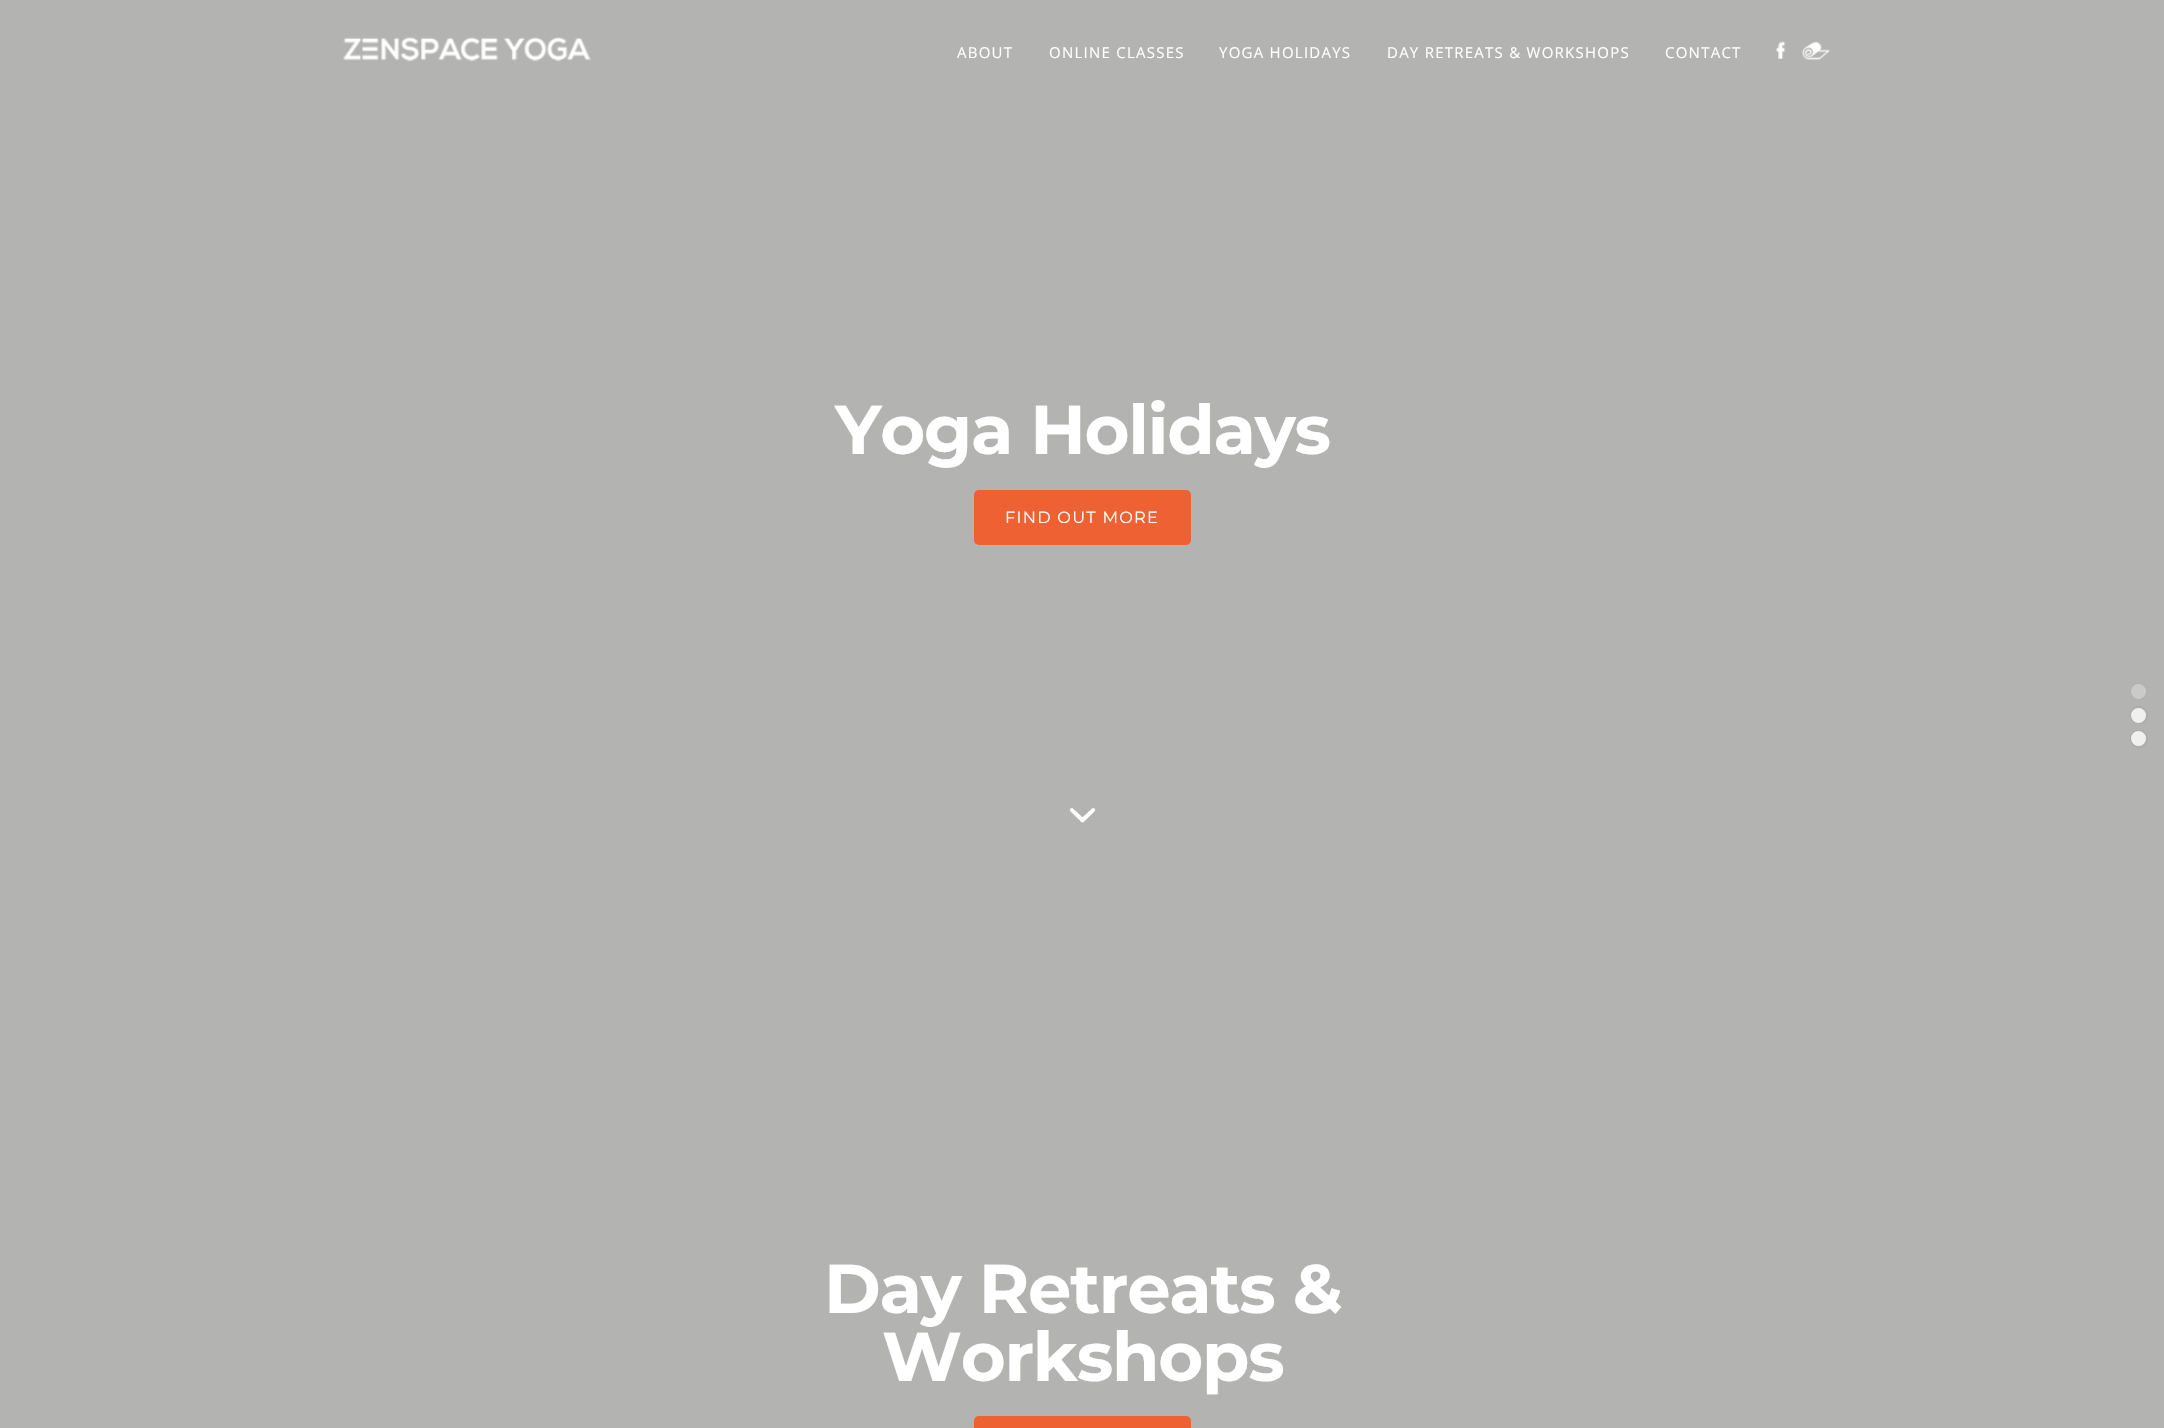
void draw(SkCanvas* canvas) {
  SkPaint paint;
  paint.setAntiAlias(true);
  auto face = [&](const char* family, int weight, float size, bool italic = false) {
    SkFontStyle style(weight, SkFontStyle::kNormal_Width,
      italic ? SkFontStyle::kItalic_Slant : SkFontStyle::kUpright_Slant);
    SkFont result(fontMgr->matchFamilyStyle(family, style), size);
    result.setSubpixel(true);
    return result;
  };
  auto writeSpaced = [&](const char* s, float x, float y, const SkFont& font, const SkPaint& ink, float letter, float word) {
    std::vector<SkGlyphID> glyphs(font.countText(s, strlen(s), SkTextEncoding::kUTF8));
    std::vector<float> xs(glyphs.size());
    font.textToGlyphs(s, strlen(s), SkTextEncoding::kUTF8, glyphs);
    font.getXPos(glyphs, xs, x);
    float extra = 0;
    for (size_t i = 0; i < glyphs.size(); i++) {
      xs[i] += extra;
      extra += letter + word * (glyphs[i] == font.unicharToGlyph(' '));
    }
    canvas->drawTextBlob(SkTextBlob::MakeFromPosHGlyphs(glyphs, xs, y, font), 0, 0, ink);
  };
  auto paste = [&](const char* path, float x, float y, float w, float h) {
    auto image = SkImages::DeferredFromEncodedData(SkData::MakeFromFileName(path));
    canvas->drawImageRect(image, SkRect::MakeXYWH(x, y, w, h), SkSamplingOptions());
  };
  canvas->clear(0xffb3b3b1);
  paste("img/1.png", 343, 37, 248, 25);
  paste("img/2.png", 1776, 41, 10, 18);
  paste("img/3.png", 1802, 41, 28, 19);
  paint.setColor(0xffed6132);
  canvas->drawRoundRect(SkRect::MakeXYWH(974, 490, 217, 55), 5, 5, paint);
  paste("img/4.png", 1069, 808, 27, 15);
  canvas->drawRoundRect(SkRect::MakeXYWH(974, 1416, 217, 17), 5, 5, paint);
  paint.setStroke(true);
  paint.setStrokeWidth(1);
  paint.setColor(0xffafafad);
  canvas->drawRoundRect(SkRect::MakeXYWH(2130.5f, 683.5f, 17, 16), 8, 8, paint);
  paint.setStroke(false);
  paint.setColor(0xffcacac8);
  canvas->drawCircle(2138.5f, 691.5f, 7.5f, paint);
  paint.setStroke(true);
  paint.setColor(0xffa9a9a7);
  canvas->drawCircle(2139, 715, 8.5f, paint);
  paint.setStroke(false);
  paint.setColor(0xfff0f0ef);
  canvas->drawCircle(2138.5f, 715.5f, 7.5f, paint);
  paint.setStroke(true);
  paint.setColor(0xffa9a9a7);
  canvas->drawCircle(2139, 739, 8.5f, paint);
  paint.setStroke(false);
  paint.setColor(0xfff0f0ef);
  canvas->drawCircle(2138.5f, 738.5f, 7.5f, paint);
  auto f0 = face("Open Sans", 400, 15);
  paint.setColor(0xffffffff);
  {
    const struct { const char* s; float x, y; } items[] = {
      {"ABOUT", 957, 58},
      {"ONLINE CLASSES", 1049, 58},
      {"YOGA HOLIDAYS", 1219, 58},
      {"DAY RETREATS & WORKSHOPS", 1387, 58},
      {"CONTACT", 1665, 58},
    };
    for (auto [s, x, y] : items) {
      writeSpaced(s, x, y, f0, paint, 1.25f, 0);
    }
  }
  auto f1 = face("Montserrat", 700, 68.75f);
  writeSpaced("Yoga Holidays", 835, 454, f1, paint, -1.25f, 0);
  auto f2 = face("Montserrat", 400, 16.25f);
  writeSpaced("FIND OUT MORE", 1005, 523, f2, paint, 1.25f, 0);
  writeSpaced("Day Retreats &", 824, 1313, f1, paint, -1.25f, 0);
  writeSpaced("Workshops", 882, 1381, f1, paint, -1.25f, 0);
}
